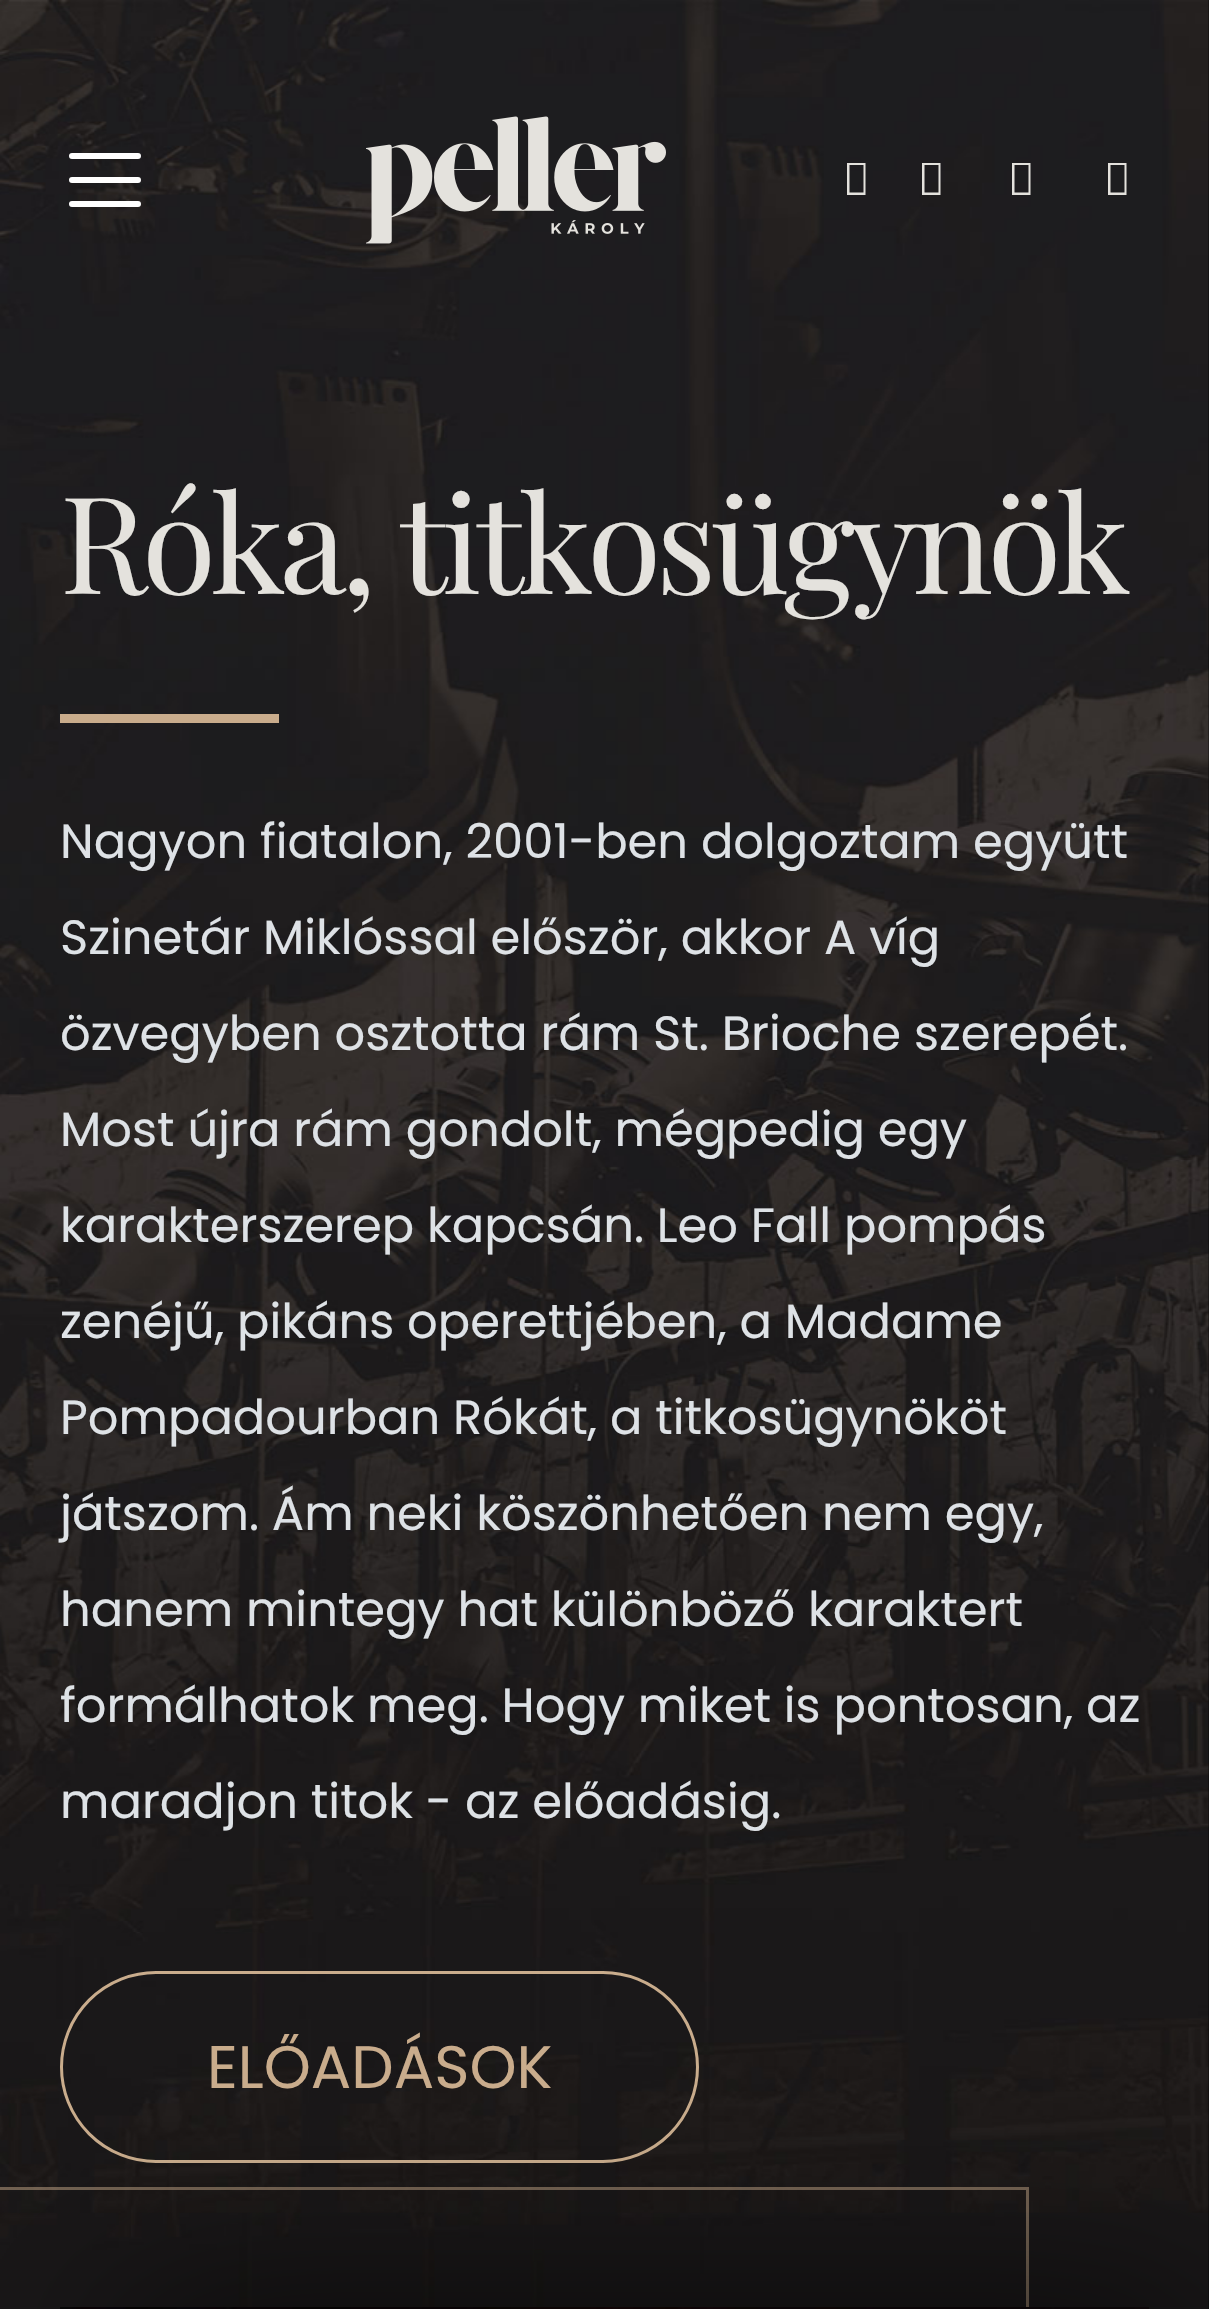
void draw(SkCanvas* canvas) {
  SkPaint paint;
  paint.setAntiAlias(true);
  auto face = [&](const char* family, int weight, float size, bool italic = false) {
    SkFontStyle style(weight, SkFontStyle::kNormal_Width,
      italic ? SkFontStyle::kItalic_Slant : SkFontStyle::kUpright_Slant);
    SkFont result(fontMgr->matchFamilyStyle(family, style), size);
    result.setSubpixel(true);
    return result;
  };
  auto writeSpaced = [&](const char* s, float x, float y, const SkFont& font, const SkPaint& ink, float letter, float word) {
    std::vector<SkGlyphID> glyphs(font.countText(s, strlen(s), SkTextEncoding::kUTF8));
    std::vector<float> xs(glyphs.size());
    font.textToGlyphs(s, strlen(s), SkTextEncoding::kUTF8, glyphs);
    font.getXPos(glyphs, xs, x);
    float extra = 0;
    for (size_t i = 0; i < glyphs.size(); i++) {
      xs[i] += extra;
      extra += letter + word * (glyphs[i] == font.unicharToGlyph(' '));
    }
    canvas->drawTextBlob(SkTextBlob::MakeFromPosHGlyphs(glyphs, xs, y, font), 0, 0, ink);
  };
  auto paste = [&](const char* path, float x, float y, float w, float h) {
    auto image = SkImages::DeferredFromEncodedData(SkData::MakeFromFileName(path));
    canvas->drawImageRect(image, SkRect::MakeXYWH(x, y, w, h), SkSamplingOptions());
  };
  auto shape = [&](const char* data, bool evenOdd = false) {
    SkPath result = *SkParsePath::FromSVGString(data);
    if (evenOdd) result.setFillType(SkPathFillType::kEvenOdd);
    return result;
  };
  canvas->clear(0xff000000);
  paste("img/2.png", 0, 0, 1209, 2309);
  paint.setStroke(true);
  paint.setStrokeWidth(6);
  paint.setStrokeCap(SkPaint::kRound_Cap);
  paint.setColor(0xffffffff);
  canvas->drawPath(shape("M72 156H138M72 180H138M72 204H138"), paint);
  paste("img/1.png", 366, 116, 300, 128);
  paint.setStroke(false);
  paint.setColor(0xffe4e2dd);
  canvas->drawPath(shape("M847 195V163H865.5V195ZM849.5 192.5H863.5V165H849.5Z"), paint);
  canvas->drawPath(shape("M922 195V163H940.5V195ZM924.5 192.5H938.5V165H924.5Z"), paint);
  canvas->drawPath(shape("M1012 195V163H1030.5V195ZM1014.5 192.5H1028.5V165H1014.5Z"), paint);
  canvas->drawPath(shape("M1108 195V163H1126.5V195ZM1110.5 192.5H1124.5V165H1110.5Z"), paint);
  paint.setColor(0xffc9ac8c);
  canvas->drawRect(SkRect::MakeXYWH(60, 714, 219, 9), paint);
  paint.setStroke(true);
  paint.setStrokeWidth(3);
  paint.setStrokeCap(SkPaint::kButt_Cap);
  canvas->drawRoundRect(SkRect::MakeXYWH(61.5f, 1972.5f, 636, 189), 94.5f, 94.5f, paint);
  paint.setColor(0x80c9ac8c);
  canvas->drawRect(SkRect::MakeXYWH(-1.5f, 2188.5f, 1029, 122), paint);
  paint.setStroke(false);
  paint.setColor(0xeb000000);
  paint.setMaskFilter(SkMaskFilter::MakeBlur(kNormal_SkBlurStyle, 96));
  canvas->drawRect(SkRect::MakeXYWH(120, 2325, 1089, 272), paint);
  paint.setMaskFilter(nullptr);
  paste("img/3.png", 60, 2307, 1089, 2);
  auto f0 = face("Playfair Display", 400, 135);
  paint.setColor(0xffe4e2dd);
  writeSpaced("Róka, titkosügynök", 60, 594, f0, paint, -5.4f, 0);
  auto f1 = face("Poppins", 400, 48);
  paint.setColor(0xffdee2e6);
  {
    const struct { const char* s; float x, y; } items[] = {
      {"Nagyon fiatalon, 2001-ben dolgoztam együtt", 60, 858},
      {"Szinetár Miklóssal először, akkor A víg", 60, 954},
      {"özvegyben osztotta rám St. Brioche szerepét.", 60, 1050},
      {"Most újra rám gondolt, mégpedig egy", 60, 1146},
      {"karakterszerep kapcsán. Leo Fall pompás", 60, 1242},
      {"zenéjű, pikáns operettjében, a Madame", 60, 1338},
      {"Pompadourban Rókát, a titkosügynököt", 60, 1434},
      {"játszom. Ám neki köszönhetően nem egy,", 60, 1530},
      {"hanem mintegy hat különböző karaktert", 60, 1626},
      {"formálhatok meg. Hogy miket is pontosan, az", 60, 1722},
      {"maradjon titok - az előadásig.", 60, 1818},
    };
    for (auto [s, x, y] : items) {
      canvas->drawString(s, x, y, f1, paint);
    }
  }
  auto f2 = face("Poppins", 400, 60);
  paint.setColor(0xffc9ac8c);
  canvas->drawString("ELŐADÁSOK", 207, 2088, f2, paint);
}
